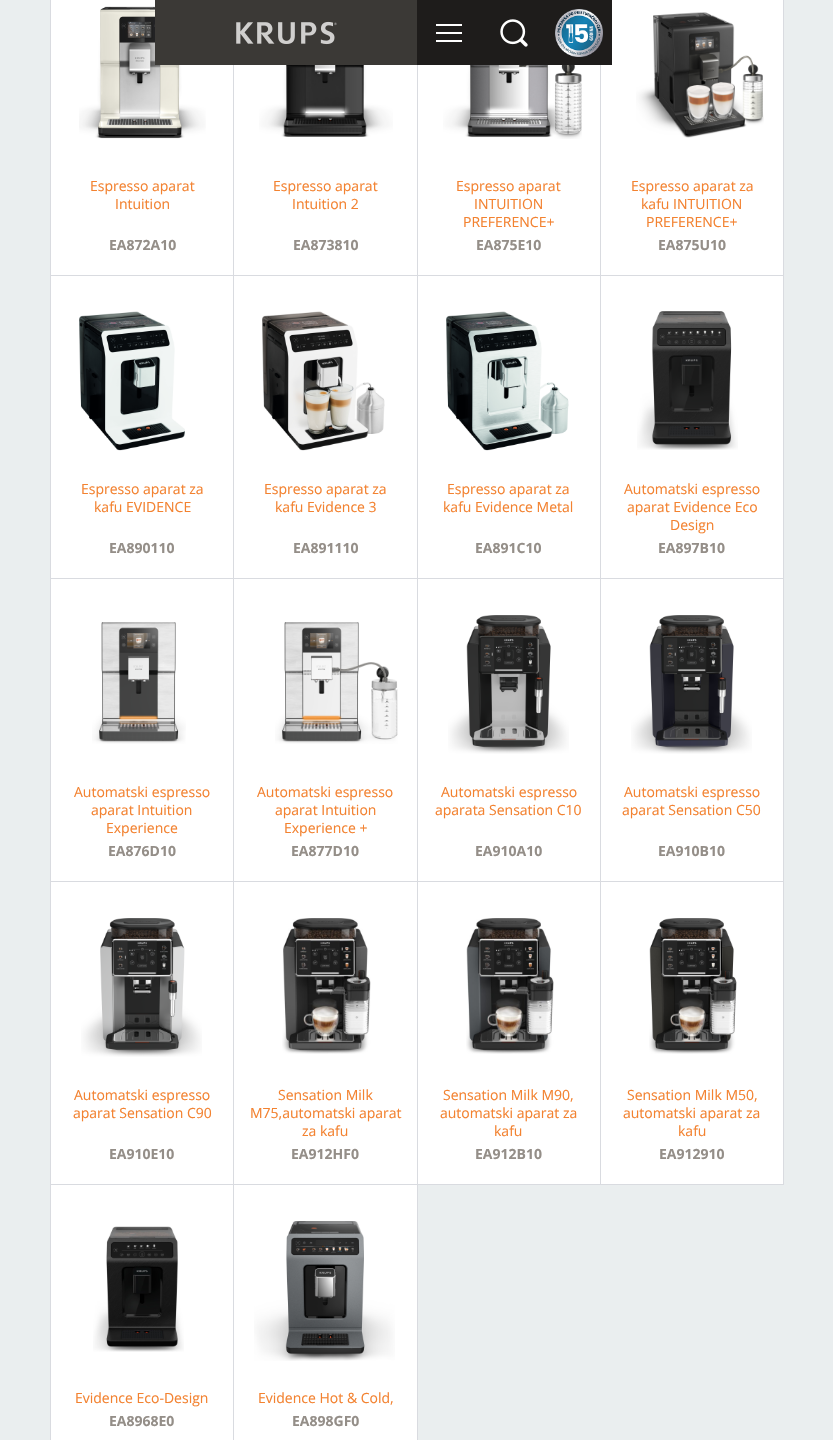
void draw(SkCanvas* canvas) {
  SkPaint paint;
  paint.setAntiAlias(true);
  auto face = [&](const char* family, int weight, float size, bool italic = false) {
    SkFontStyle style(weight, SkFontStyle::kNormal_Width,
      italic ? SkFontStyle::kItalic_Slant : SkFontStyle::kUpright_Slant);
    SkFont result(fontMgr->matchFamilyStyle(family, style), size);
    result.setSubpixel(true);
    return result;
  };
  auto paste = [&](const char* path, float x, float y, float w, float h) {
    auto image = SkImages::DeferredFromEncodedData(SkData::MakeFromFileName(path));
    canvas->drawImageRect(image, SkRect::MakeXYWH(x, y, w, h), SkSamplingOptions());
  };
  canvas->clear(0xffeaeeef);
  paint.setColor(0xffffffff);
  canvas->drawRect(SkRect::MakeXYWH(50.5f, -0.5f, 183, 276), paint);
  paint.setStroke(true);
  paint.setStrokeWidth(1);
  paint.setColor(0xffd9dbe0);
  canvas->drawRect(SkRect::MakeXYWH(50.5f, -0.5f, 183, 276), paint);
  paste("img/4.png", 79, 6, 127, 133);
  paint.setStroke(false);
  paint.setColor(0xffffffff);
  canvas->drawRect(SkRect::MakeXYWH(234, 65, 183, 210), paint);
  paint.setStroke(true);
  paint.setColor(0xffd9dbe0);
  canvas->drawRect(SkRect::MakeXYWH(233.5f, -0.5f, 184, 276), paint);
  paint.setStroke(false);
  paint.setColor(0xff3b3936);
  canvas->drawRect(SkRect::MakeXYWH(155, 0, 262, 65), paint);
  paste("img/1.png", 236, 21, 101, 24);
  paint.setColor(0xffffffff);
  canvas->drawRect(SkRect::MakeXYWH(418, 65, 182, 210), paint);
  paint.setStroke(true);
  paint.setColor(0xffd9dbe0);
  canvas->drawRect(SkRect::MakeXYWH(417.5f, -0.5f, 183, 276), paint);
  paint.setStroke(false);
  paint.setColor(0xffffffff);
  canvas->drawRect(SkRect::MakeXYWH(600.5f, -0.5f, 183, 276), paint);
  paint.setStroke(true);
  paint.setColor(0xffd9dbe0);
  canvas->drawRect(SkRect::MakeXYWH(600.5f, -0.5f, 183, 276), paint);
  paint.setStroke(false);
  {
    const struct { float x, y, w, h; SkColor color; } items[] = {
      {417, 0, 195, 65, 0xff1e1c1b},
      {436, 32, 26, 2, 0xffffffff},
      {436, 24, 26, 2, 0xffffffff},
      {436, 40, 26, 2, 0xffffffff},
    };
    for (auto [x, y, w, h, color] : items) {
      paint.setColor(color);
      canvas->drawRect(SkRect::MakeXYWH(x, y, w, h), paint);
    }
  }
  paste("img/2.png", 500, 19, 28, 28);
  paste("img/3.png", 555, 9, 48, 48);
  paste("img/5.png", 259, 65, 134, 72);
  paste("img/6.png", 443, 65, 139, 74);
  paste("img/7.png", 636, 12, 128, 126);
  canvas->drawRect(SkRect::MakeXYWH(50.5f, 275.5f, 183, 303), paint);
  paint.setStroke(true);
  paint.setColor(0xffd9dbe0);
  canvas->drawRect(SkRect::MakeXYWH(50.5f, 275.5f, 183, 303), paint);
  paste("img/8.png", 79, 311, 106, 140);
  paint.setStroke(false);
  paint.setColor(0xffffffff);
  canvas->drawRect(SkRect::MakeXYWH(233.5f, 275.5f, 184, 303), paint);
  paint.setStroke(true);
  paint.setColor(0xffd9dbe0);
  canvas->drawRect(SkRect::MakeXYWH(233.5f, 275.5f, 184, 303), paint);
  paste("img/9.png", 262, 311, 123, 140);
  paint.setStroke(false);
  paint.setColor(0xffffffff);
  canvas->drawRect(SkRect::MakeXYWH(417.5f, 275.5f, 183, 303), paint);
  paint.setStroke(true);
  paint.setColor(0xffd9dbe0);
  canvas->drawRect(SkRect::MakeXYWH(417.5f, 275.5f, 183, 303), paint);
  paste("img/10.png", 446, 311, 123, 140);
  paint.setStroke(false);
  paint.setColor(0xffffffff);
  canvas->drawRect(SkRect::MakeXYWH(600.5f, 275.5f, 183, 303), paint);
  paint.setStroke(true);
  paint.setColor(0xffd9dbe0);
  canvas->drawRect(SkRect::MakeXYWH(600.5f, 275.5f, 183, 303), paint);
  paste("img/11.png", 637, 311, 101, 139);
  paint.setStroke(false);
  paint.setColor(0xffffffff);
  canvas->drawRect(SkRect::MakeXYWH(50.5f, 578.5f, 183, 303), paint);
  paint.setStroke(true);
  paint.setColor(0xffd9dbe0);
  canvas->drawRect(SkRect::MakeXYWH(50.5f, 578.5f, 183, 303), paint);
  paste("img/12.png", 92, 622, 94, 122);
  paint.setStroke(false);
  paint.setColor(0xffffffff);
  canvas->drawRect(SkRect::MakeXYWH(233.5f, 578.5f, 184, 303), paint);
  paint.setStroke(true);
  paint.setColor(0xffd9dbe0);
  canvas->drawRect(SkRect::MakeXYWH(233.5f, 578.5f, 184, 303), paint);
  paste("img/13.png", 275, 622, 123, 122);
  paint.setStroke(false);
  paint.setColor(0xffffffff);
  canvas->drawRect(SkRect::MakeXYWH(417.5f, 578.5f, 183, 303), paint);
  paint.setStroke(true);
  paint.setColor(0xffd9dbe0);
  canvas->drawRect(SkRect::MakeXYWH(417.5f, 578.5f, 183, 303), paint);
  paste("img/14.png", 448, 615, 121, 139);
  paint.setStroke(false);
  paint.setColor(0xffffffff);
  canvas->drawRect(SkRect::MakeXYWH(600.5f, 578.5f, 183, 303), paint);
  paint.setStroke(true);
  paint.setColor(0xffd9dbe0);
  canvas->drawRect(SkRect::MakeXYWH(600.5f, 578.5f, 183, 303), paint);
  paste("img/15.png", 631, 615, 121, 139);
  paint.setStroke(false);
  paint.setColor(0xffffffff);
  canvas->drawRect(SkRect::MakeXYWH(50.5f, 881.5f, 183, 303), paint);
  paint.setStroke(true);
  paint.setColor(0xffd9dbe0);
  canvas->drawRect(SkRect::MakeXYWH(50.5f, 881.5f, 183, 303), paint);
  paste("img/16.png", 81, 918, 121, 139);
  paint.setStroke(false);
  paint.setColor(0xffffffff);
  canvas->drawRect(SkRect::MakeXYWH(233.5f, 881.5f, 184, 303), paint);
  paint.setStroke(true);
  paint.setColor(0xffd9dbe0);
  canvas->drawRect(SkRect::MakeXYWH(233.5f, 881.5f, 184, 303), paint);
  paste("img/17.png", 282, 918, 89, 136);
  paint.setStroke(false);
  paint.setColor(0xffffffff);
  canvas->drawRect(SkRect::MakeXYWH(417.5f, 881.5f, 183, 303), paint);
  paint.setStroke(true);
  paint.setColor(0xffd9dbe0);
  canvas->drawRect(SkRect::MakeXYWH(417.5f, 881.5f, 183, 303), paint);
  paste("img/18.png", 466, 918, 88, 136);
  paint.setStroke(false);
  paint.setColor(0xffffffff);
  canvas->drawRect(SkRect::MakeXYWH(600.5f, 881.5f, 183, 303), paint);
  paint.setStroke(true);
  paint.setColor(0xffd9dbe0);
  canvas->drawRect(SkRect::MakeXYWH(600.5f, 881.5f, 183, 303), paint);
  paste("img/19.png", 649, 918, 88, 136);
  paint.setStroke(false);
  paint.setColor(0xffffffff);
  canvas->drawRect(SkRect::MakeXYWH(50.5f, 1184.5f, 183, 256), paint);
  paint.setStroke(true);
  paint.setColor(0xffd9dbe0);
  canvas->drawRect(SkRect::MakeXYWH(50.5f, 1184.5f, 183, 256), paint);
  paste("img/20.png", 93, 1226, 91, 126);
  paint.setStroke(false);
  paint.setColor(0xffffffff);
  canvas->drawRect(SkRect::MakeXYWH(233.5f, 1184.5f, 184, 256), paint);
  paint.setStroke(true);
  paint.setColor(0xffd9dbe0);
  canvas->drawRect(SkRect::MakeXYWH(233.5f, 1184.5f, 184, 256), paint);
  paste("img/21.png", 254, 1221, 141, 140);
  auto f0 = face("Open Sans", 400, 14);
  paint.setStroke(false);
  paint.setColor(0xfff38230);
  canvas->drawString("Espresso aparat", 90, 191, f0, paint);
  canvas->drawString("Intuition", 115, 209, f0, paint);
  auto f1 = face("Open Sans", 700, 14);
  paint.setColor(0xff948e88);
  canvas->drawString("EA872A10", 109, 250, f1, paint);
  paint.setColor(0xfff38230);
  canvas->drawString("Espresso aparat", 273, 191, f0, paint);
  canvas->drawString("Intuition 2", 292, 209, f0, paint);
  paint.setColor(0xff948e88);
  canvas->drawString("EA873810", 293, 250, f1, paint);
  paint.setColor(0xfff38230);
  {
    const struct { const char* s; float x, y; } items[] = {
      {"Espresso aparat", 456, 191},
      {"INTUITION", 474, 209},
      {"PREFERENCE+", 463, 227},
    };
    for (auto [s, x, y] : items) {
      canvas->drawString(s, x, y, f0, paint);
    }
  }
  paint.setColor(0xff948e88);
  canvas->drawString("EA875E10", 476, 250, f1, paint);
  paint.setColor(0xfff38230);
  {
    const struct { const char* s; float x, y; } items[] = {
      {"Espresso aparat za", 631, 191},
      {"kafu INTUITION", 641, 209},
      {"PREFERENCE+", 646, 227},
    };
    for (auto [s, x, y] : items) {
      canvas->drawString(s, x, y, f0, paint);
    }
  }
  paint.setColor(0xff948e88);
  canvas->drawString("EA875U10", 658, 250, f1, paint);
  paint.setColor(0xfff38230);
  canvas->drawString("Espresso aparat za", 81, 494, f0, paint);
  canvas->drawString("kafu EVIDENCE", 94, 512, f0, paint);
  paint.setColor(0xff948e88);
  canvas->drawString("EA890110", 109, 553, f1, paint);
  paint.setColor(0xfff38230);
  canvas->drawString("Espresso aparat za", 264, 494, f0, paint);
  canvas->drawString("kafu Evidence 3", 275, 512, f0, paint);
  paint.setColor(0xff948e88);
  canvas->drawString("EA891110", 293, 553, f1, paint);
  paint.setColor(0xfff38230);
  canvas->drawString("Espresso aparat za", 447, 494, f0, paint);
  canvas->drawString("kafu Evidence Metal", 443, 512, f0, paint);
  paint.setColor(0xff948e88);
  canvas->drawString("EA891C10", 475, 553, f1, paint);
  paint.setColor(0xfff38230);
  {
    const struct { const char* s; float x, y; } items[] = {
      {"Automatski espresso", 624, 494},
      {"aparat Evidence Eco", 627, 512},
      {"Design", 670, 530},
    };
    for (auto [s, x, y] : items) {
      canvas->drawString(s, x, y, f0, paint);
    }
  }
  paint.setColor(0xff948e88);
  canvas->drawString("EA897B10", 658, 553, f1, paint);
  paint.setColor(0xfff38230);
  {
    const struct { const char* s; float x, y; } items[] = {
      {"Automatski espresso", 74, 797},
      {"aparat Intuition", 91, 815},
      {"Experience", 106, 833},
    };
    for (auto [s, x, y] : items) {
      canvas->drawString(s, x, y, f0, paint);
    }
  }
  paint.setColor(0xff948e88);
  canvas->drawString("EA876D10", 108, 856, f1, paint);
  paint.setColor(0xfff38230);
  {
    const struct { const char* s; float x, y; } items[] = {
      {"Automatski espresso", 257, 797},
      {"aparat Intuition", 275, 815},
      {"Experience +", 284, 833},
    };
    for (auto [s, x, y] : items) {
      canvas->drawString(s, x, y, f0, paint);
    }
  }
  paint.setColor(0xff948e88);
  canvas->drawString("EA877D10", 291, 856, f1, paint);
  paint.setColor(0xfff38230);
  canvas->drawString("Automatski espresso", 441, 797, f0, paint);
  canvas->drawString("aparata Sensation C10", 435, 815, f0, paint);
  paint.setColor(0xff948e88);
  canvas->drawString("EA910A10", 475, 856, f1, paint);
  paint.setColor(0xfff38230);
  canvas->drawString("Automatski espresso", 624, 797, f0, paint);
  canvas->drawString("aparat Sensation C50", 622, 815, f0, paint);
  paint.setColor(0xff948e88);
  canvas->drawString("EA910B10", 658, 856, f1, paint);
  paint.setColor(0xfff38230);
  canvas->drawString("Automatski espresso", 74, 1100, f0, paint);
  canvas->drawString("aparat Sensation C90", 73, 1118, f0, paint);
  paint.setColor(0xff948e88);
  canvas->drawString("EA910E10", 109, 1159, f1, paint);
  paint.setColor(0xfff38230);
  {
    const struct { const char* s; float x, y; } items[] = {
      {"Sensation Milk", 278, 1100},
      {"M75,automatski aparat", 250, 1118},
      {"za kafu", 302, 1136},
    };
    for (auto [s, x, y] : items) {
      canvas->drawString(s, x, y, f0, paint);
    }
  }
  paint.setColor(0xff948e88);
  canvas->drawString("EA912HF0", 291, 1159, f1, paint);
  paint.setColor(0xfff38230);
  {
    const struct { const char* s; float x, y; } items[] = {
      {"Sensation Milk M90,", 443, 1100},
      {"automatski aparat za", 440, 1118},
      {"kafu", 494, 1136},
    };
    for (auto [s, x, y] : items) {
      canvas->drawString(s, x, y, f0, paint);
    }
  }
  paint.setColor(0xff948e88);
  canvas->drawString("EA912B10", 475, 1159, f1, paint);
  paint.setColor(0xfff38230);
  {
    const struct { const char* s; float x, y; } items[] = {
      {"Sensation Milk M50,", 627, 1100},
      {"automatski aparat za", 623, 1118},
      {"kafu", 678, 1136},
    };
    for (auto [s, x, y] : items) {
      canvas->drawString(s, x, y, f0, paint);
    }
  }
  paint.setColor(0xff948e88);
  canvas->drawString("EA912910", 659, 1159, f1, paint);
  paint.setColor(0xfff38230);
  canvas->drawString("Evidence Eco-Design", 75, 1403, f0, paint);
  paint.setColor(0xff948e88);
  canvas->drawString("EA8968E0", 109, 1426, f1, paint);
  paint.setColor(0xfff38230);
  canvas->drawString("Evidence Hot & Cold,", 258, 1403, f0, paint);
  paint.setColor(0xff948e88);
  canvas->drawString("EA898GF0", 292, 1426, f1, paint);
}
